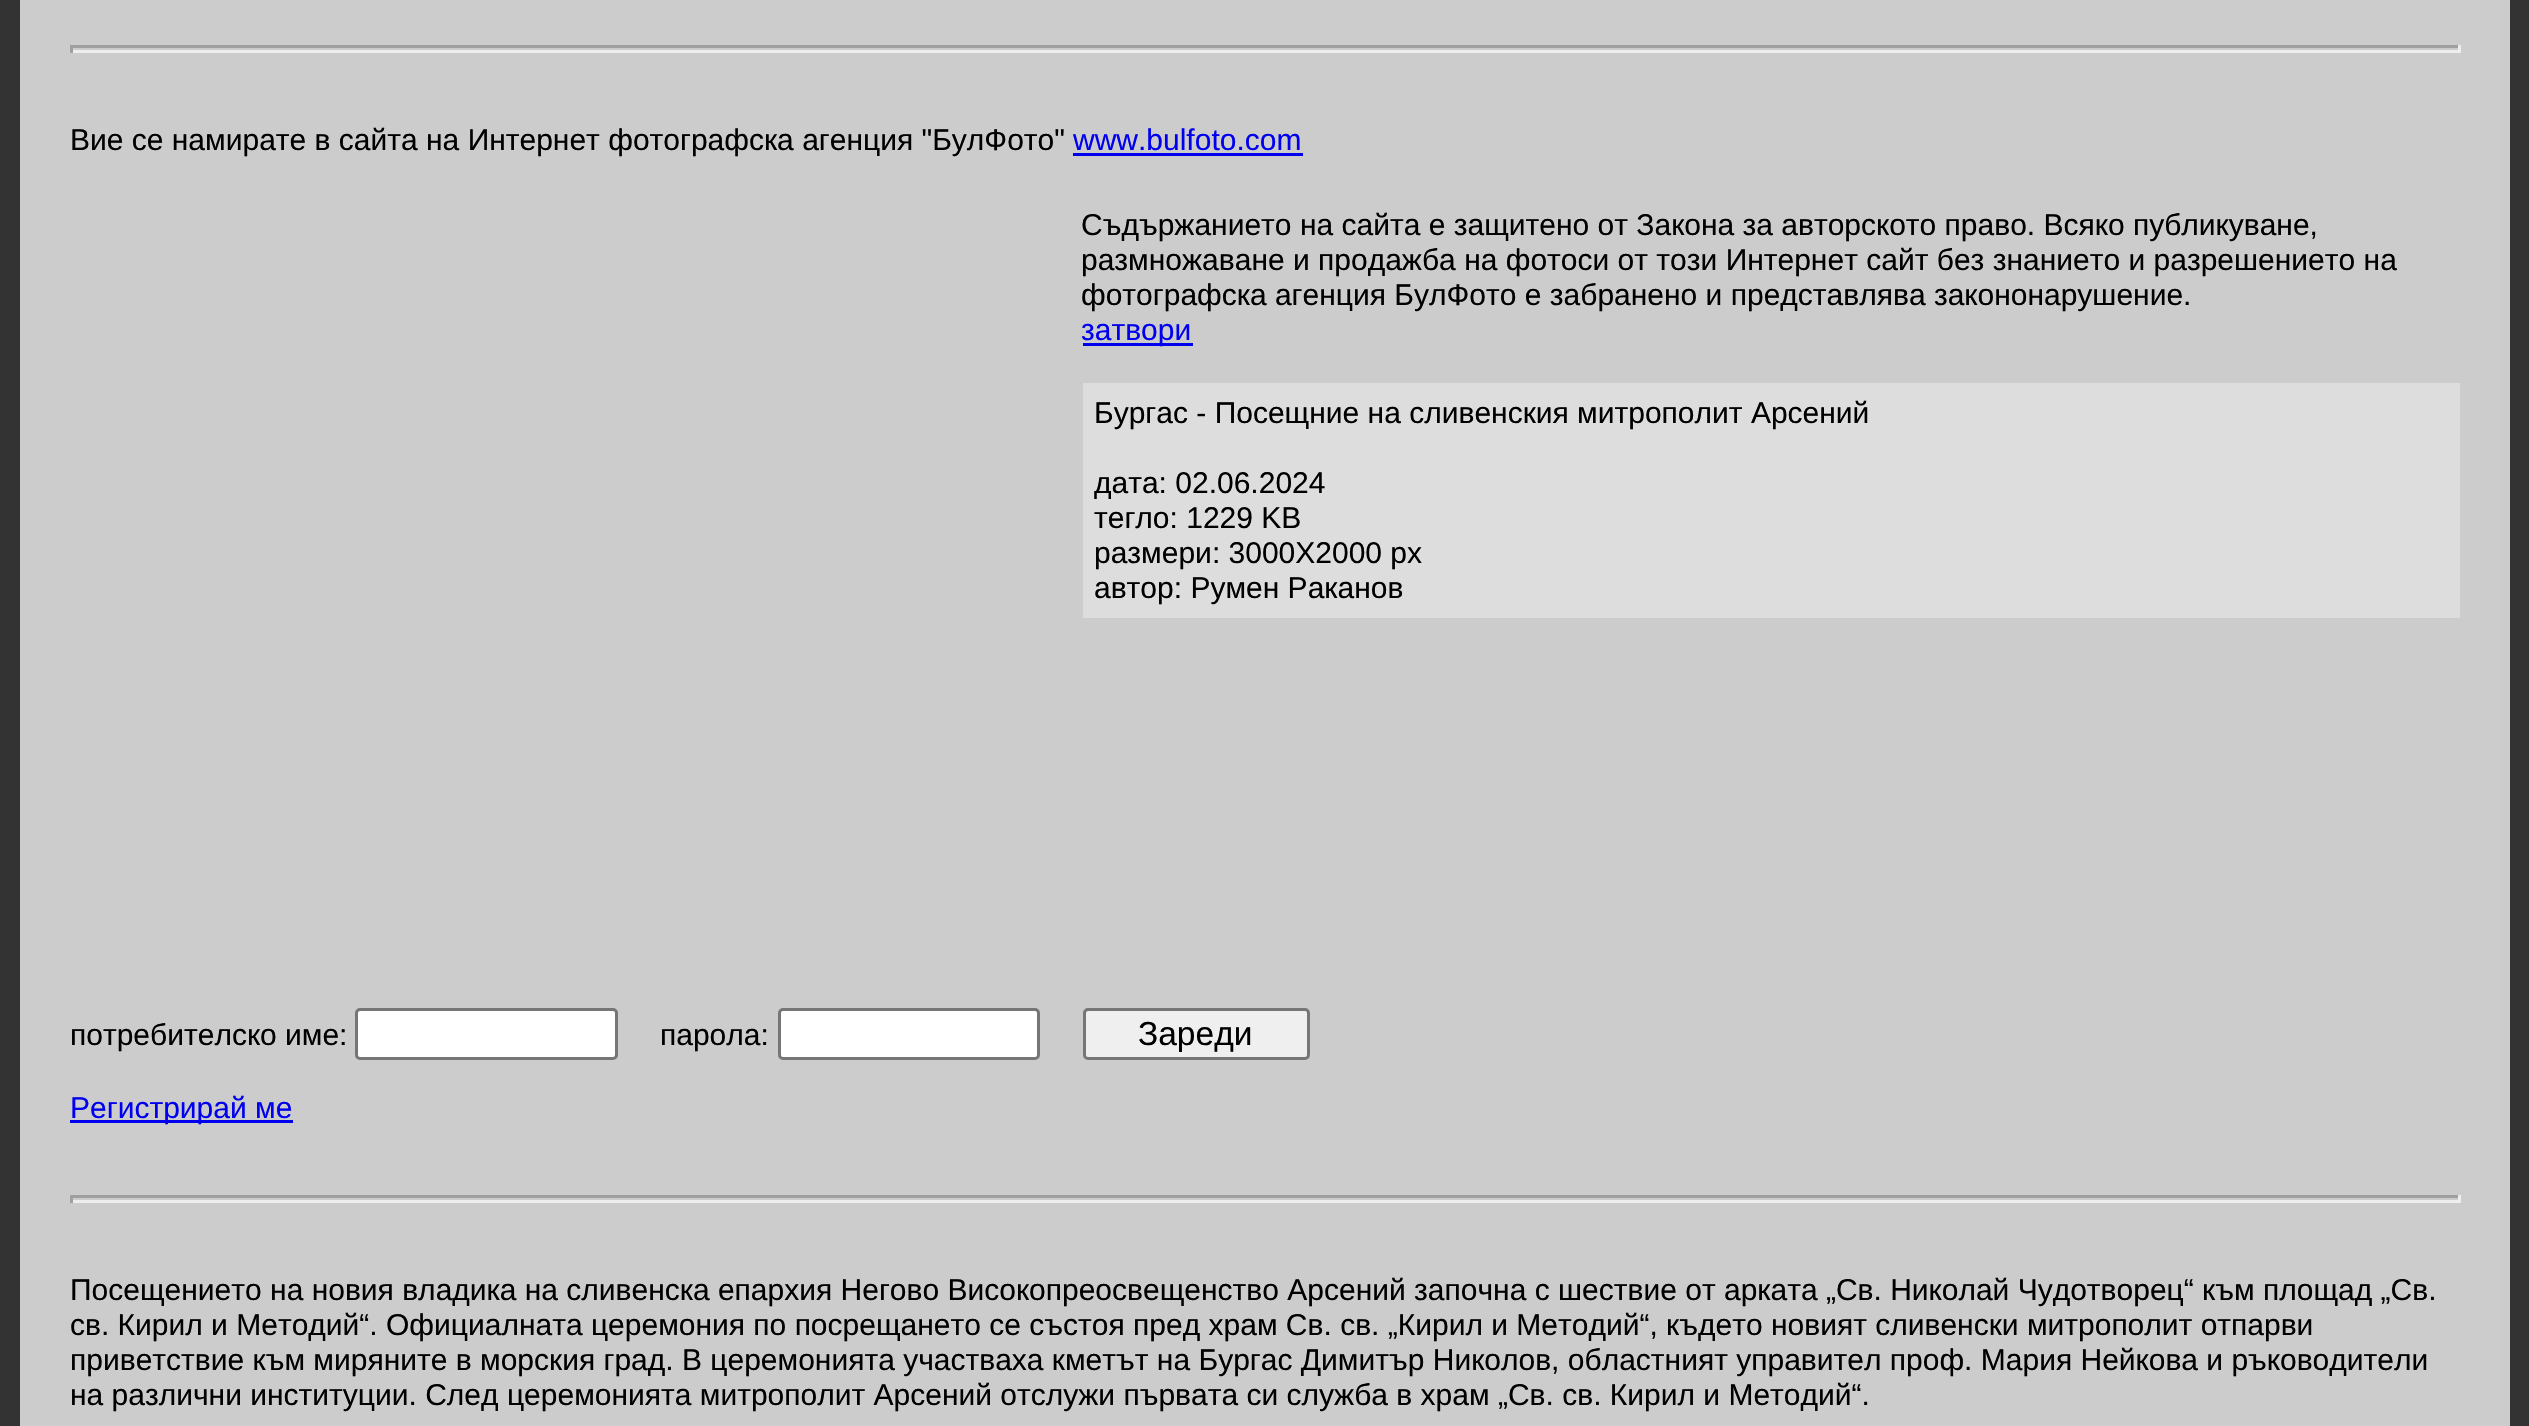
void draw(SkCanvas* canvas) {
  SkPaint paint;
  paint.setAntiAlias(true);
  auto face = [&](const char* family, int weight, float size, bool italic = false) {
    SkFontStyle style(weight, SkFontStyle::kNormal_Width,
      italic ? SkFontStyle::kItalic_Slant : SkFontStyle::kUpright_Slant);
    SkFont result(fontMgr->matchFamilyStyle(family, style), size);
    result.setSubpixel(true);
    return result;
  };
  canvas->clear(0xff333333);
  {
    const struct { float x, y, w, h; SkColor color; } items[] = {
      {20, 0, 2490, 1426, 0xffcccccc},
      {70, 45, 2390, 3, 0xff9f9f9f},
      {2458, 45, 3, 8, 0xffeeeeee},
      {70, 50, 2390, 3, 0xffeeeeee},
      {70, 45, 3, 8, 0xff9f9f9f},
      {1073, 153, 230, 3, 0xff0000ee},
      {1083, 343, 110, 3, 0xff0000ee},
      {1083, 383, 1377, 235, 0xffdddddd},
    };
    for (auto [x, y, w, h, color] : items) {
      paint.setColor(color);
      canvas->drawRect(SkRect::MakeXYWH(x, y, w, h), paint);
    }
  }
  paint.setColor(0xffffffff);
  canvas->drawRoundRect(SkRect::MakeXYWH(356.5f, 1009.5f, 260, 49), 3.5f, 3.5f, paint);
  paint.setStroke(true);
  paint.setStrokeWidth(3);
  paint.setColor(0xff767676);
  canvas->drawRoundRect(SkRect::MakeXYWH(356.5f, 1009.5f, 260, 49), 3.5f, 3.5f, paint);
  paint.setStroke(false);
  paint.setColor(0xffffffff);
  canvas->drawRoundRect(SkRect::MakeXYWH(779.5f, 1009.5f, 259, 49), 3.5f, 3.5f, paint);
  paint.setStroke(true);
  paint.setColor(0xff767676);
  canvas->drawRoundRect(SkRect::MakeXYWH(779.5f, 1009.5f, 259, 49), 3.5f, 3.5f, paint);
  paint.setStroke(false);
  paint.setColor(0xffefefef);
  canvas->drawRoundRect(SkRect::MakeXYWH(1084.5f, 1009.5f, 224, 49), 3.5f, 3.5f, paint);
  paint.setStroke(true);
  paint.setColor(0xff767676);
  canvas->drawRoundRect(SkRect::MakeXYWH(1084.5f, 1009.5f, 224, 49), 3.5f, 3.5f, paint);
  paint.setStroke(false);
  {
    const struct { float x, y, w, h; SkColor color; } items[] = {
      {70, 1120, 223, 3, 0xff0000ee},
      {70, 1195, 2390, 3, 0xff9f9f9f},
      {2458, 1195, 3, 8, 0xffeeeeee},
      {70, 1200, 2390, 3, 0xffeeeeee},
      {70, 1195, 3, 8, 0xff9f9f9f},
    };
    for (auto [x, y, w, h, color] : items) {
      paint.setColor(color);
      canvas->drawRect(SkRect::MakeXYWH(x, y, w, h), paint);
    }
  }
  auto f0 = face("Liberation Sans", 400, 30);
  paint.setColor(0xff000000);
  canvas->drawString("Вие се намирате в сайта на Интернет фотографска агенция \"БулФото\"", 70, 150, f0, paint);
  paint.setColor(0xff0000ee);
  canvas->drawString("www.bulfoto.com", 1073, 150, f0, paint);
  paint.setColor(0xff000000);
  {
    const struct { const char* s; float x, y; } items[] = {
      {"Съдържанието на сайта е защитено от Закона за авторското право. Всяко публикуване,", 1081, 235},
      {"размножаване и продажба на фотоси от този Интернет сайт без знанието и разрешението на", 1081, 270},
      {"фотографска агенция БулФото е забранено и представлява закононарушение.", 1081, 305},
    };
    for (auto [s, x, y] : items) {
      canvas->drawString(s, x, y, f0, paint);
    }
  }
  paint.setColor(0xff0000ee);
  canvas->drawString("затвори", 1081, 340, f0, paint);
  paint.setColor(0xff000000);
  {
    const struct { const char* s; float x, y; } items[] = {
      {"Бургас - Посещние на сливенския митрополит Арсений", 1094, 423},
      {"дата: 02.06.2024", 1094, 493},
      {"тегло: 1229 KB", 1094, 528},
      {"размери: 3000X2000 px", 1094, 563},
      {"автор: Румен Раканов", 1094, 598},
      {"потребителско име:", 70, 1045},
      {"парола:", 660, 1045},
    };
    for (auto [s, x, y] : items) {
      canvas->drawString(s, x, y, f0, paint);
    }
  }
  auto f1 = face("Liberation Sans", 400, 33.5f);
  canvas->drawString("Зареди", 1138, 1045, f1, paint);
  paint.setColor(0xff0000ee);
  canvas->drawString("Регистрирай ме", 70, 1118, f0, paint);
  paint.setColor(0xff000000);
  {
    const struct { const char* s; float x, y; } items[] = {
      {"Посещението на новия владика на сливенска епархия Негово Високопреосвещенство Арсений започна с шествие от арката „Св. Николай Чудотворец“ към площад „Св.", 70, 1300},
      {"св. Кирил и Методий“. Официалната церемония по посрещането се състоя пред храм Св. св. „Кирил и Методий“, където новият сливенски митрополит отпарви", 70, 1335},
      {"приветствие към миряните в морския град. В церемонията участваха кметът на Бургас Димитър Николов, областният управител проф. Мария Нейкова и ръководители", 70, 1370},
      {"на различни институции. След церемонията митрополит Арсений отслужи първата си служба в храм „Св. св. Кирил и Методий“.", 70, 1405},
    };
    for (auto [s, x, y] : items) {
      canvas->drawString(s, x, y, f0, paint);
    }
  }
}
